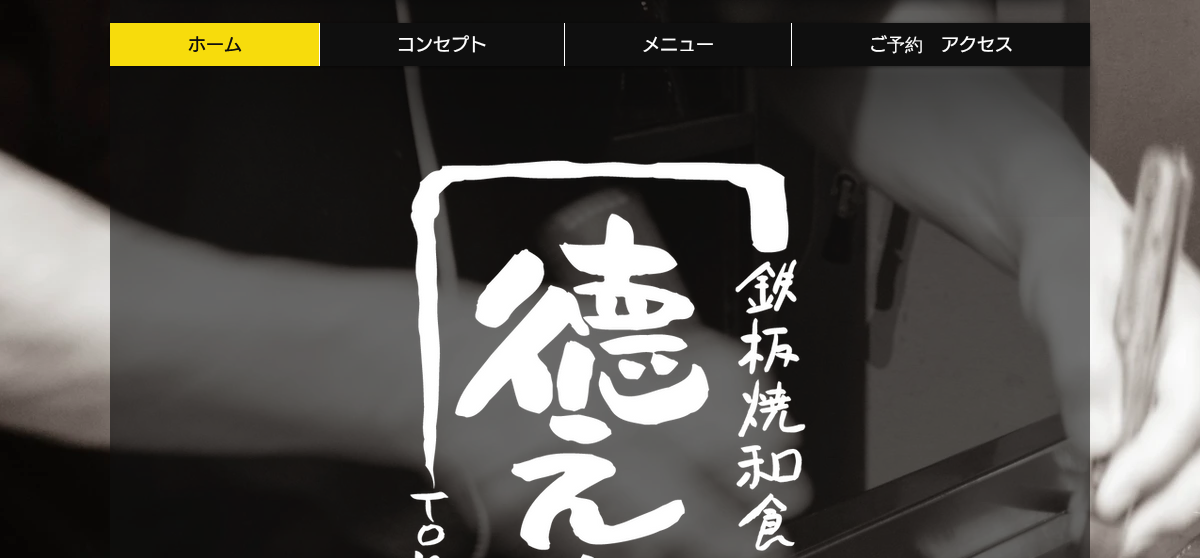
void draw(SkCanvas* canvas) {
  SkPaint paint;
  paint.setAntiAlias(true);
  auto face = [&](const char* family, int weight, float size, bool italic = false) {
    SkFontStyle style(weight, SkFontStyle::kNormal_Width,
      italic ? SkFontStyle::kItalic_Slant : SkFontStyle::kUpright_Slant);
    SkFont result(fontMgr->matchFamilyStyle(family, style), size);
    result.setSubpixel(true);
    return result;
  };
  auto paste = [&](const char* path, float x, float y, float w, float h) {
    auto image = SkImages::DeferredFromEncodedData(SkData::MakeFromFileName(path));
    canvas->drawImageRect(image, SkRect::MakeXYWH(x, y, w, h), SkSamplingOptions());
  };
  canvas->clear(0xffffffff);
  paste("img/1.png", 0, 0, 1200, 558);
  paste("img/2.png", 138, 0, 72, 4);
  paste("img/3.png", 210, 0, 780, 11);
  paste("img/4.png", 990, 0, 93, 11);
  paste("img/5.png", 109, 65, 36, 69);
  paste("img/6.png", 145, 66, 910, 151);
  paste("img/7.png", 1055, 58, 43, 159);
  paint.setColor(0x990f0f0f);
  canvas->drawRect(SkRect::MakeXYWH(110, 0, 980, 67), paint);
  canvas->drawRect(SkRect::MakeXYWH(110, 67, 980, 491), paint);
  paint.setColor(0x99000000);
  paint.setMaskFilter(SkMaskFilter::MakeBlur(kNormal_SkBlurStyle, 2));
  canvas->drawRect(SkRect::MakeXYWH(110, 24, 980, 43), paint);
  paint.setMaskFilter(nullptr);
  {
    const struct { float x, y, w, h; SkColor color; } items[] = {
      {320, 23, 770, 43, 0xff0f0f0f},
      {110, 23, 209, 43, 0xfff7dc0c},
      {319, 23, 1, 43, 0xffffffff},
      {564, 23, 1, 43, 0xffffffff},
      {791, 23, 1, 43, 0xffffffff},
    };
    for (auto [x, y, w, h, color] : items) {
      paint.setColor(color);
      canvas->drawRect(SkRect::MakeXYWH(x, y, w, h), paint);
    }
  }
  paste("img/8.png", 410, 160, 396, 398);
  auto f0 = face("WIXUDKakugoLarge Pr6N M", 500, 18);
  paint.setColor(0xff0f0f0f);
  canvas->drawString("ホーム", 188, 51, f0, paint);
  paint.setColor(0xffffffff);
  {
    const struct { const char* s; float x, y; } items[] = {
      {"コンセプト", 397, 51},
      {"メニュー", 642, 51},
      {"ご", 869, 51},
    };
    for (auto [s, x, y] : items) {
      canvas->drawString(s, x, y, f0, paint);
    }
  }
  auto f1 = face("WenQuanYi Zen Hei", 500, 18);
  canvas->drawString("予約", 887, 51, f1, paint);
  canvas->drawString("アクセス", 941, 51, f0, paint);
}
